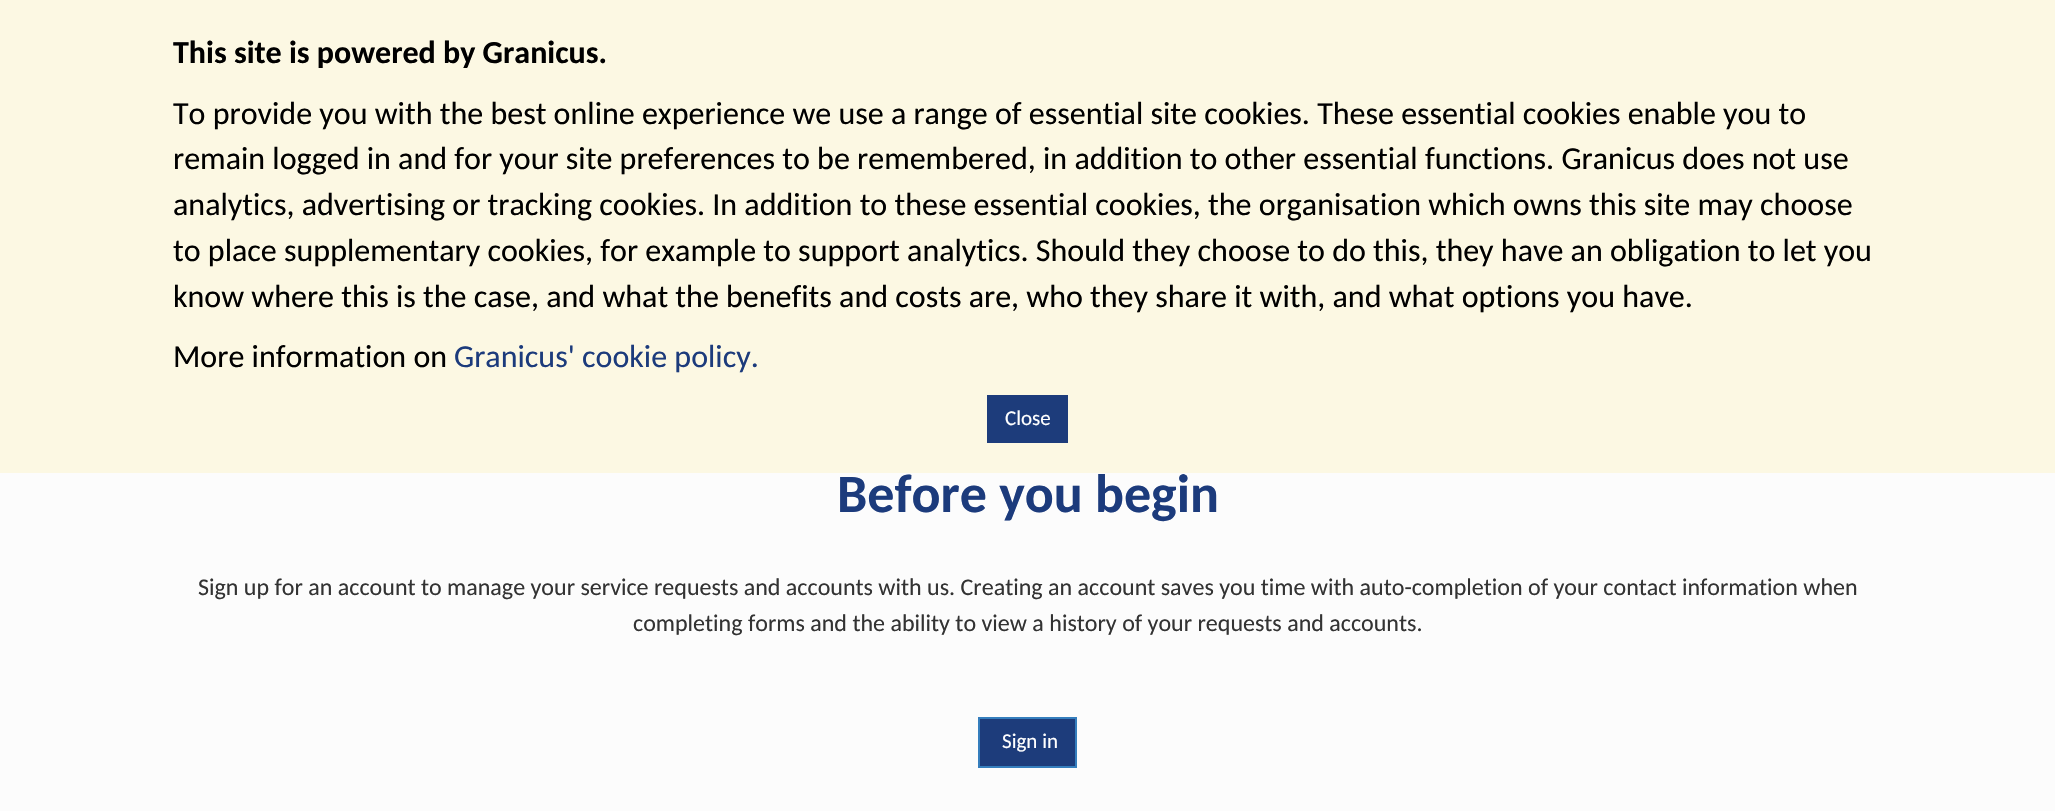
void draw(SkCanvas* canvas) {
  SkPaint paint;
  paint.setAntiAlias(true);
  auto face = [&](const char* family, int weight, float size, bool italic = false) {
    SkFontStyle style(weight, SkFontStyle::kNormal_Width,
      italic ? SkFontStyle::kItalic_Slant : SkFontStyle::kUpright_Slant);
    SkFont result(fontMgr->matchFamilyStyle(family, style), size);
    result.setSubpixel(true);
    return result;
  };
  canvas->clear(0xfffcfcfc);
  paint.setColor(0xfffcf8e3);
  canvas->drawRect(SkRect::MakeXYWH(0, 0, 2055, 473), paint);
  paint.setColor(0xff1d3c7b);
  canvas->drawRect(SkRect::MakeXYWH(987, 395, 81, 48), paint);
  canvas->drawRect(SkRect::MakeXYWH(979, 718, 97, 49), paint);
  paint.setStroke(true);
  paint.setStrokeWidth(2);
  paint.setColor(0xff357ebd);
  canvas->drawRect(SkRect::MakeXYWH(979, 718, 97, 49), paint);
  auto f0 = face("Carlito", 700, 32);
  paint.setStroke(false);
  paint.setColor(0xff000000);
  canvas->drawString("This site is powered by Granicus.", 173, 63, f0, paint);
  auto f1 = face("Carlito", 400, 32);
  {
    const struct { const char* s; float x, y; } items[] = {
      {"To provide you with the best online experience we use a range of essential site cookies. These essential cookies enable you to", 173, 124},
      {"remain logged in and for your site preferences to be remembered, in addition to other essential functions. Granicus does not use", 173, 169},
      {"analytics, advertising or tracking cookies. In addition to these essential cookies, the organisation which owns this site may choose", 173, 215},
      {"to place supplementary cookies, for example to support analytics. Should they choose to do this, they have an obligation to let you", 173, 261},
      {"know where this is the case, and what the benefits and costs are, who they share it with, and what options you have.", 173, 307},
      {"More information on", 173, 367},
    };
    for (auto [s, x, y] : items) {
      canvas->drawString(s, x, y, f1, paint);
    }
  }
  paint.setColor(0xff1c3b7c);
  canvas->drawString("Granicus' cookie policy.", 454, 367, f1, paint);
  auto f2 = face("Carlito", 400, 21);
  paint.setColor(0xffffffff);
  canvas->drawString("Close", 1005, 425, f2, paint);
  auto f3 = face("Carlito", 700, 54);
  paint.setColor(0xff1c3b7c);
  canvas->drawString("Before you begin", 837, 512, f3, paint);
  auto f4 = face("Carlito", 400, 24);
  paint.setColor(0xff333333);
  canvas->drawString("Sign up for an account to manage your service requests and accounts with us. Creating an account saves you time with auto-completion of your contact information when", 198, 595, f4, paint);
  canvas->drawString("completing forms and the ability to view a history of your requests and accounts.", 633, 631, f4, paint);
  paint.setColor(0xffffffff);
  canvas->drawString("Sign in", 1002, 748, f2, paint);
}
